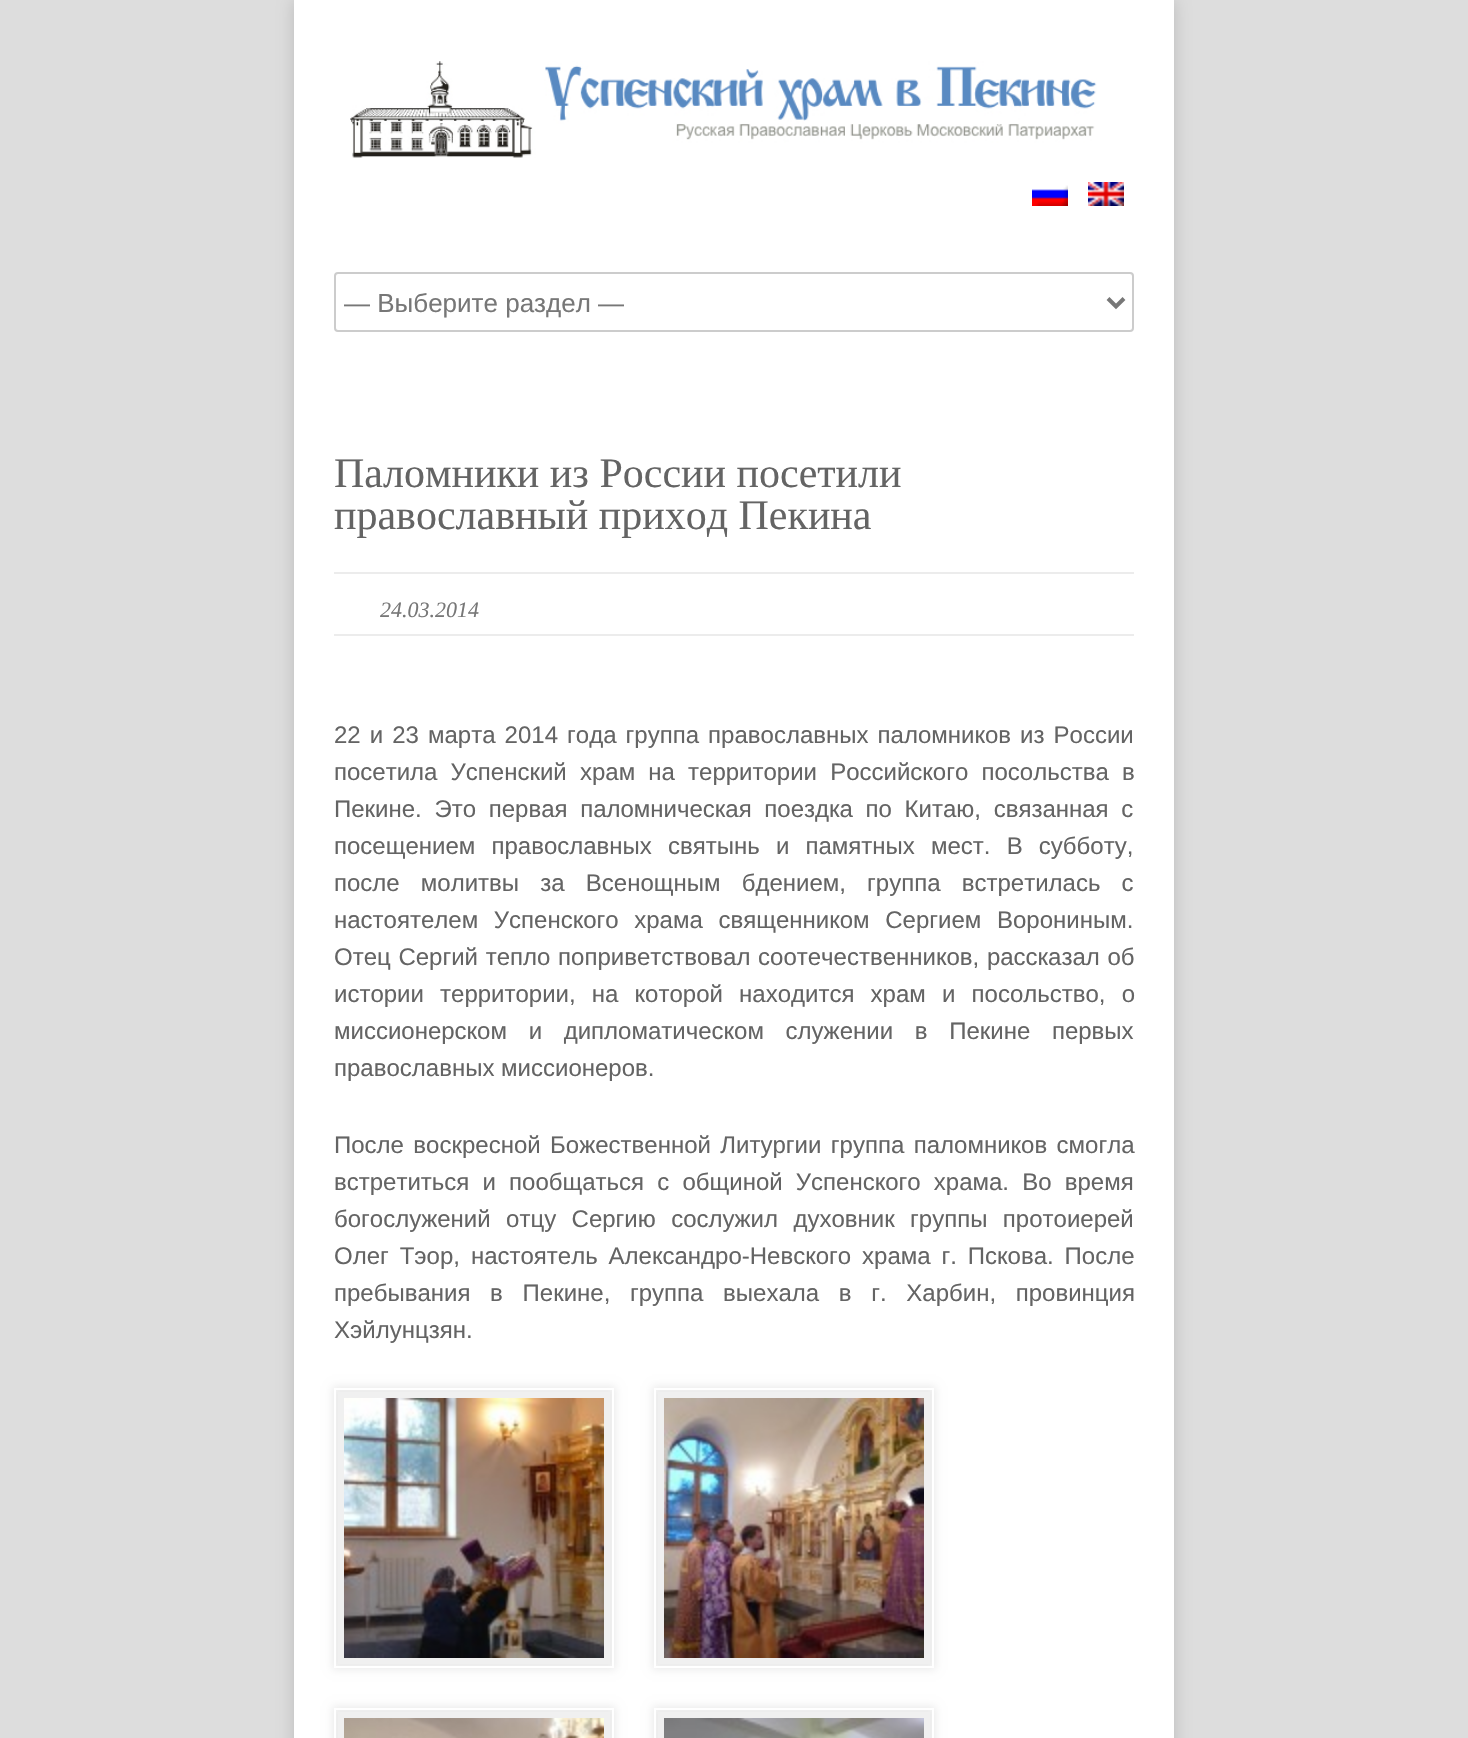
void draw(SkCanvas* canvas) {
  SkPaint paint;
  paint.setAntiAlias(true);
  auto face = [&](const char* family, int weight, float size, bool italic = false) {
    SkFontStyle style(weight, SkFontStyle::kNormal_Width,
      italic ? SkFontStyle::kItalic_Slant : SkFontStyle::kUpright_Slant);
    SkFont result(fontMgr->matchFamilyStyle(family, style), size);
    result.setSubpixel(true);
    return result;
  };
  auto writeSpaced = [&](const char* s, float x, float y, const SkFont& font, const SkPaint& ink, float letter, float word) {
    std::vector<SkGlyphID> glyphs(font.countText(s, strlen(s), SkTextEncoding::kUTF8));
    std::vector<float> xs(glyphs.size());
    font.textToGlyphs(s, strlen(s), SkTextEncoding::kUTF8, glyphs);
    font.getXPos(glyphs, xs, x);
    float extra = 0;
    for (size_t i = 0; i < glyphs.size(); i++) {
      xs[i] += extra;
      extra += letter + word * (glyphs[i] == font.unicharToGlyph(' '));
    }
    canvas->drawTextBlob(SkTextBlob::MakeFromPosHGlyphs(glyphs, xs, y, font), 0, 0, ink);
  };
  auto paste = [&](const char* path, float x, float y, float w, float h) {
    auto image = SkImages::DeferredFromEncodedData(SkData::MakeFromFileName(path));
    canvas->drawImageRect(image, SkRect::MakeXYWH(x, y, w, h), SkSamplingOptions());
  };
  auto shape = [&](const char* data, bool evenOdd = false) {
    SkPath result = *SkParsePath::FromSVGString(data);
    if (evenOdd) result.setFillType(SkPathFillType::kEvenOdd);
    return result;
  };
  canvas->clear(0xffdddddd);
  paint.setColor(0xffbbbbbb);
  paint.setMaskFilter(SkMaskFilter::MakeBlur(kNormal_SkBlurStyle, 8));
  canvas->drawRect(SkRect::MakeXYWH(294, 0, 880, 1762), paint);
  paint.setMaskFilter(nullptr);
  paint.setColor(0xffffffff);
  canvas->drawRect(SkRect::MakeXYWH(294, 0, 880, 1738), paint);
  paste("img/1.png", 350, 61, 747, 97);
  paste("img/2.png", 1032, 185, 36, 21);
  paste("img/3.png", 1088, 182, 36, 24);
  paint.setStroke(true);
  paint.setStrokeWidth(2);
  paint.setColor(0xffcccccc);
  canvas->drawRoundRect(SkRect::MakeXYWH(335, 273, 798, 58), 3, 3, paint);
  paint.setStrokeWidth(4);
  paint.setColor(0xff777777);
  canvas->drawPath(shape("M1108 298.5L1116 306.5L1124 298.5"), paint);
  paint.setStroke(false);
  paint.setColor(0xffececec);
  canvas->drawRect(SkRect::MakeXYWH(334, 572, 800, 2), paint);
  canvas->drawRect(SkRect::MakeXYWH(334, 634, 800, 2), paint);
  paint.setMaskFilter(SkMaskFilter::MakeBlur(kNormal_SkBlurStyle, 4));
  canvas->drawRect(SkRect::MakeXYWH(332, 1386, 284, 284), paint);
  paint.setMaskFilter(nullptr);
  paint.setColor(0xfff0f0f0);
  canvas->drawRect(SkRect::MakeXYWH(338, 1392, 272, 272), paint);
  paint.setStroke(true);
  paint.setStrokeWidth(2);
  paint.setColor(0xffffffff);
  canvas->drawRect(SkRect::MakeXYWH(335, 1389, 278, 278), paint);
  paste("img/4.png", 344, 1398, 260, 260);
  paint.setStroke(false);
  paint.setColor(0xffececec);
  paint.setMaskFilter(SkMaskFilter::MakeBlur(kNormal_SkBlurStyle, 4));
  canvas->drawRect(SkRect::MakeXYWH(652, 1386, 284, 284), paint);
  paint.setMaskFilter(nullptr);
  paint.setColor(0xfff0f0f0);
  canvas->drawRect(SkRect::MakeXYWH(658, 1392, 272, 272), paint);
  paint.setStroke(true);
  paint.setColor(0xffffffff);
  canvas->drawRect(SkRect::MakeXYWH(655, 1389, 278, 278), paint);
  paste("img/5.png", 664, 1398, 260, 260);
  paint.setStroke(false);
  paint.setColor(0xffececec);
  paint.setMaskFilter(SkMaskFilter::MakeBlur(kNormal_SkBlurStyle, 4));
  canvas->drawRect(SkRect::MakeXYWH(332, 1706, 284, 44), paint);
  paint.setMaskFilter(nullptr);
  paint.setColor(0xfff0f0f0);
  canvas->drawRect(SkRect::MakeXYWH(338, 1712, 272, 26), paint);
  paint.setStroke(true);
  paint.setColor(0xffffffff);
  canvas->drawRect(SkRect::MakeXYWH(335, 1709, 278, 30), paint);
  paste("img/6.png", 344, 1718, 260, 20);
  paint.setStroke(false);
  paint.setColor(0xffececec);
  paint.setMaskFilter(SkMaskFilter::MakeBlur(kNormal_SkBlurStyle, 4));
  canvas->drawRect(SkRect::MakeXYWH(652, 1706, 284, 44), paint);
  paint.setMaskFilter(nullptr);
  paint.setColor(0xfff0f0f0);
  canvas->drawRect(SkRect::MakeXYWH(658, 1712, 272, 26), paint);
  paint.setStroke(true);
  paint.setColor(0xffffffff);
  canvas->drawRect(SkRect::MakeXYWH(655, 1709, 278, 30), paint);
  paste("img/7.png", 664, 1718, 260, 20);
  auto f0 = face("Liberation Sans", 400, 26);
  paint.setStroke(false);
  paint.setColor(0xff777777);
  canvas->drawString("— Выберите раздел —", 344, 312, f0, paint);
  auto f1 = face("Liberation Serif", 400, 42);
  paint.setColor(0xff646464);
  canvas->drawString("Паломники из России посетили", 334, 487, f1, paint);
  canvas->drawString("православный приход Пекина", 334, 529, f1, paint);
  auto f2 = face("Liberation Serif", 400, 22, true);
  paint.setColor(0xff777777);
  canvas->drawString("24.03.2014", 380, 617, f2, paint);
  auto f3 = face("Liberation Sans", 400, 24);
  paint.setColor(0xff646464);
  writeSpaced("22 и 23 марта 2014 года группа православных паломников из России", 334, 743, f3, paint, 0, 2.4f);
  writeSpaced("посетила Успенский храм на территории Российского посольства в", 334, 780, f3, paint, 0, 6.5f);
  writeSpaced("Пекине. Это первая паломническая поездка по Китаю, связанная с", 334, 817, f3, paint, 0, 6);
  writeSpaced("посещением православных святынь и памятных мест. В субботу,", 334, 854, f3, paint, 0, 9.5f);
  writeSpaced("после молитвы за Всенощным бдением, группа встретилась с", 334, 891, f3, paint, 0, 14.5f);
  writeSpaced("настоятелем Успенского храма священником Сергием Ворониным.", 334, 928, f3, paint, 0, 9);
  writeSpaced("Отец Сергий тепло поприветствовал соотечественников, рассказал об", 334, 965, f3, paint, 0, 1);
  writeSpaced("истории территории, на которой находится храм и посольство, о", 334, 1002, f3, paint, 0, 9.5f);
  writeSpaced("миссионерском и дипломатическом служении в Пекине первых", 334, 1039, f3, paint, 0, 15);
  canvas->drawString("православных миссионеров.", 334, 1076, f3, paint);
  writeSpaced("После воскресной Божественной Литургии группа паломников смогла", 334, 1153, f3, paint, 0, 2.75f);
  writeSpaced("встретиться и пообщаться с общиной Успенского храма. Во время", 334, 1190, f3, paint, 0, 6.5f);
  writeSpaced("богослужений отцу Сергию сослужил духовник группы протоиерей", 334, 1227, f3, paint, 0, 8.75f);
  writeSpaced("Олег Тэор, настоятель Александро-Невского храма г. Пскова. После", 334, 1264, f3, paint, 0, 4.25f);
  writeSpaced("пребывания в Пекине, группа выехала в г. Харбин, провинция", 334, 1301, f3, paint, 0, 13);
  canvas->drawString("Хэйлунцзян.", 334, 1338, f3, paint);
}
